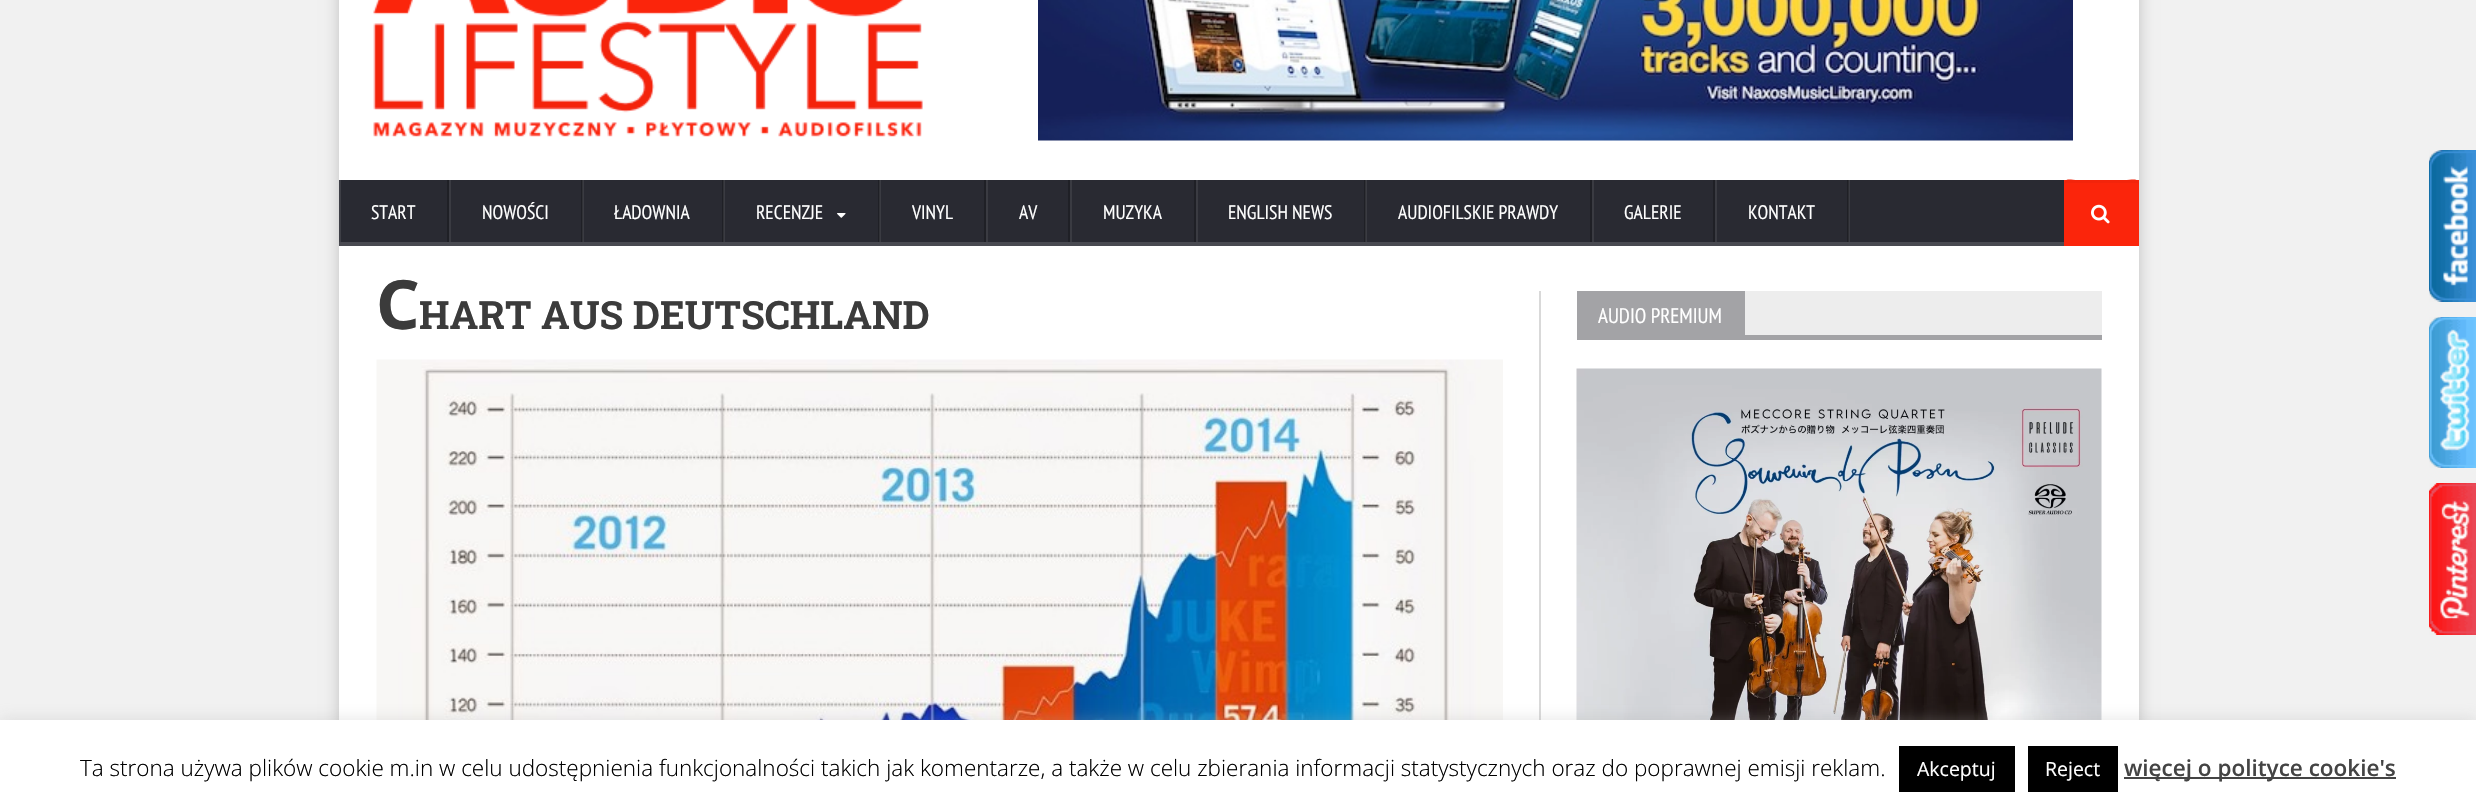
void draw(SkCanvas* canvas) {
  SkPaint paint;
  paint.setAntiAlias(true);
  auto face = [&](const char* family, int weight, float size, bool italic = false) {
    SkFontStyle style(weight, SkFontStyle::kNormal_Width,
      italic ? SkFontStyle::kItalic_Slant : SkFontStyle::kUpright_Slant);
    SkFont result(fontMgr->matchFamilyStyle(family, style), size);
    result.setSubpixel(true);
    return result;
  };
  auto paste = [&](const char* path, float x, float y, float w, float h) {
    auto image = SkImages::DeferredFromEncodedData(SkData::MakeFromFileName(path));
    canvas->drawImageRect(image, SkRect::MakeXYWH(x, y, w, h), SkSamplingOptions());
  };
  auto shape = [&](const char* data, bool evenOdd = false) {
    SkPath result = *SkParsePath::FromSVGString(data);
    if (evenOdd) result.setFillType(SkPathFillType::kEvenOdd);
    return result;
  };
  canvas->clear(0xfff1f1f1);
  paint.setColor(0x33000000);
  paint.setMaskFilter(SkMaskFilter::MakeBlur(kNormal_SkBlurStyle, 7.5f));
  canvas->drawRect(SkRect::MakeXYWH(339, -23, 1800, 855), paint);
  paint.setMaskFilter(nullptr);
  paint.setColor(0xffffffff);
  canvas->drawRect(SkRect::MakeXYWH(339, 0, 1800, 720), paint);
  paste("img/1.png", 373, 0, 550, 137);
  paste("img/2.png", 1038, 0, 1035, 141);
  {
    const struct { float x, y, w, h; SkColor color; } items[] = {
      {341, 180, 1723, 62, 0xff292a32},
      {1366, 180, 1, 62, 0xff3a3b42},
      {880, 180, 1, 62, 0xff3a3b42},
      {724, 180, 1, 62, 0xff3a3b42},
      {583, 180, 1, 62, 0xff3a3b42},
      {339, 242, 1725, 4, 0xff494a51},
      {447, 180, 2, 62, 0xff1f2026},
      {339, 180, 2, 62, 0xff3e3f46},
      {581, 180, 1, 62, 0xff1f2026},
      {582, 180, 1, 62, 0xff313237},
      {449, 180, 2, 62, 0xff3a3b42},
      {722, 180, 1, 62, 0xff1f2026},
      {723, 180, 1, 62, 0xff313237},
      {878, 180, 1, 62, 0xff1f2026},
      {879, 180, 1, 62, 0xff313237},
    };
    for (auto [x, y, w, h, color] : items) {
      paint.setColor(color);
      canvas->drawRect(SkRect::MakeXYWH(x, y, w, h), paint);
    }
  }
  paste("img/3.png", 837, 213, 9, 5);
  {
    const struct { float x, y, w, h; SkColor color; } items[] = {
      {984, 180, 2, 62, 0xff1f2026},
      {1068, 180, 2, 62, 0xff1f2026},
      {986, 180, 2, 62, 0xff3a3b42},
      {1194, 180, 2, 62, 0xff1f2026},
      {1070, 180, 2, 62, 0xff3a3b42},
      {1364, 180, 1, 62, 0xff1f2026},
      {1365, 180, 1, 62, 0xff313237},
      {1196, 180, 2, 62, 0xff3a3b42},
      {1590, 180, 2, 62, 0xff1f2026},
      {1713, 180, 2, 62, 0xff1f2026},
      {1592, 180, 2, 62, 0xff3a3b42},
    };
    for (auto [x, y, w, h, color] : items) {
      paint.setColor(color);
      canvas->drawRect(SkRect::MakeXYWH(x, y, w, h), paint);
    }
  }
  canvas->drawPath(shape("M1716 242H1850V180H1848V242Z"), paint);
  {
    const struct { float x, y, w, h; SkColor color; } items[] = {
      {1847, 180, 2, 62, 0x40000000},
      {1715, 180, 2, 62, 0xff3a3b42},
      {2064, 180, 75, 66, 0xfffb250b},
    };
    for (auto [x, y, w, h, color] : items) {
      paint.setColor(color);
      canvas->drawRect(SkRect::MakeXYWH(x, y, w, h), paint);
    }
  }
  paint.setColor(0xfff3240b);
  canvas->drawPath(shape("M2067 183H2136C2138 183 2139 184 2139 186C2139 177 2134 180 2124 180H2078C2069 180 2064 177 2064 186C2064 184 2065 183 2067 183Z"), paint);
  paste("img/4.png", 2091, 204, 19, 20);
  paste("img/5.png", 376, 359, 1127, 361);
  {
    const struct { float x, y, w, h; SkColor color; } items[] = {
      {1539, 291, 2, 429, 0xffd9d9d9},
      {1745, 291, 357, 44, 0xffededed},
      {1577, 291, 168, 44, 0xffa3a3a6},
      {1577, 335, 525, 5, 0xffa3a3a6},
    };
    for (auto [x, y, w, h, color] : items) {
      paint.setColor(color);
      canvas->drawRect(SkRect::MakeXYWH(x, y, w, h), paint);
    }
  }
  paste("img/6.png", 1576, 368, 526, 352);
  paste("img/7.png", 2429, 150, 47, 152);
  paste("img/8.png", 2429, 317, 47, 151);
  paste("img/9.png", 2429, 483, 47, 152);
  paint.setColor(0x4dacabab);
  paint.setMaskFilter(SkMaskFilter::MakeBlur(kNormal_SkBlurStyle, 7.5f));
  canvas->drawRect(SkRect::MakeXYWH(0, 719, 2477, 90), paint);
  paint.setMaskFilter(nullptr);
  {
    const struct { float x, y, w, h; SkColor color; } items[] = {
      {0, 720, 2476, 89, 0xffffffff},
      {1899, 746, 116, 46, 0xff000000},
      {2028, 746, 90, 46, 0xff000000},
      {2124, 777, 272, 2, 0xff444444},
    };
    for (auto [x, y, w, h, color] : items) {
      paint.setColor(color);
      canvas->drawRect(SkRect::MakeXYWH(x, y, w, h), paint);
    }
  }
  auto f0 = face("PT Sans Narrow", 400, 19.5f);
  paint.setColor(0xffffffff);
  {
    const struct { const char* s; float x, y; } items[] = {
      {"START", 371, 219},
      {"NOWOŚCI", 482, 219},
      {"ŁADOWNIA", 614, 219},
      {"RECENZJE", 756, 219},
      {"VINYL", 912, 219},
      {"AV", 1019, 219},
      {"MUZYKA", 1103, 219},
      {"ENGLISH NEWS", 1228, 219},
      {"AUDIOFILSKIE PRAWDY", 1398, 219},
      {"GALERIE", 1624, 219},
      {"KONTAKT", 1748, 219},
    };
    for (auto [s, x, y] : items) {
      canvas->drawString(s, x, y, f0, paint);
    }
  }
  auto f1 = face("Noto Sans", 700, 68);
  paint.setColor(0xff3b3b3b);
  canvas->drawString("C", 376, 329, f1, paint);
  auto f2 = face("Roboto Slab", 700, 39);
  canvas->drawString("HART AUS DEUTSCHLAND", 419, 329, f2, paint);
  auto f3 = face("PT Sans Narrow", 400, 21);
  paint.setColor(0xffffffff);
  canvas->drawString("AUDIO PREMIUM", 1598, 323, f3, paint);
  auto f4 = face("Open Sans", 300, 22.5f);
  paint.setColor(0xff000000);
  canvas->drawString("Ta strona używa plików cookie m.in w celu udostępnienia funkcjonalności takich jak komentarze, a także w celu zbierania informacji statystycznych oraz do poprawnej emisji reklam.", 80, 776, f4, paint);
  auto f5 = face("Open Sans", 400, 19.5f);
  paint.setColor(0xffffffff);
  canvas->drawString("Akceptuj", 1917, 776, f5, paint);
  canvas->drawString("Reject", 2045, 776, f5, paint);
  auto f6 = face("Open Sans", 600, 22.5f);
  paint.setColor(0xff444444);
  canvas->drawString("więcej o polityce cookie's", 2124, 776, f6, paint);
}
